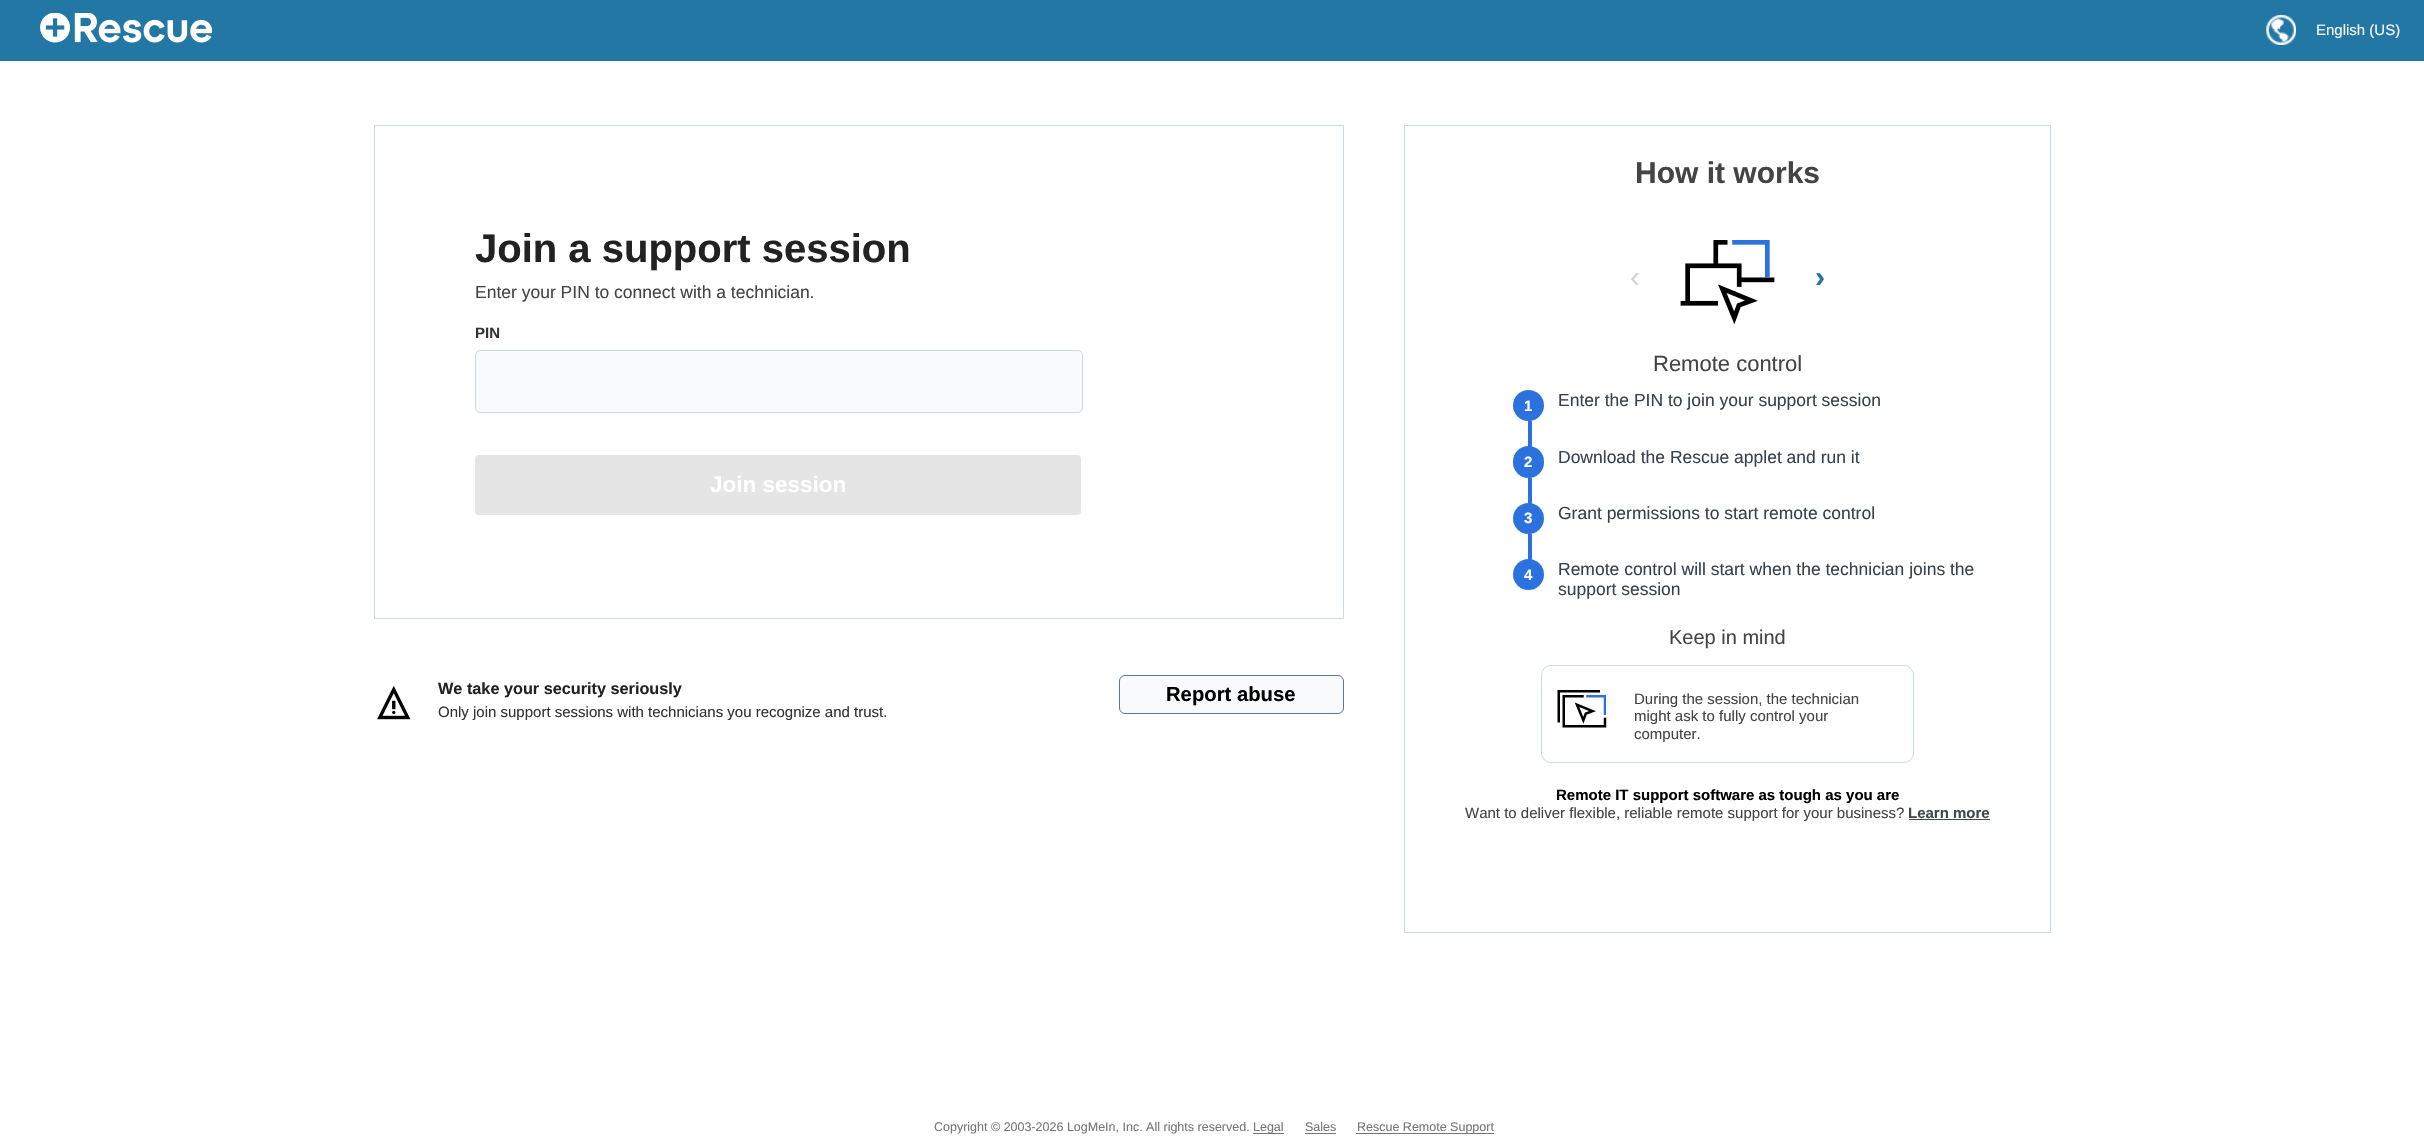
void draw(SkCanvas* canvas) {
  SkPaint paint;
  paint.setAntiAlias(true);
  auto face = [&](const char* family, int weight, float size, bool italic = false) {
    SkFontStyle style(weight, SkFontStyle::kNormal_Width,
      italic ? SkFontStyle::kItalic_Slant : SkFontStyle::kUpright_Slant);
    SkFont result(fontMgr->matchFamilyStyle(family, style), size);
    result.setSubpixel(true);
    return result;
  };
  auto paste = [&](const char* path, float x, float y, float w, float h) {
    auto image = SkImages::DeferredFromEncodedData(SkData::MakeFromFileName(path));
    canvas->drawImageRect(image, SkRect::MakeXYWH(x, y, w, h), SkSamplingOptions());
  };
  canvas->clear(0xffffffff);
  paint.setColor(0xff2377a4);
  canvas->drawRect(SkRect::MakeXYWH(0, 0, 2424, 61), paint);
  paste("img/1.png", 40, 13, 172, 30);
  paste("img/2.png", 2266, 15, 30, 30);
  paint.setStroke(true);
  paint.setStrokeWidth(1);
  paint.setColor(0xffcbdbe4);
  canvas->drawRect(SkRect::MakeXYWH(374.5f, 125.5f, 969, 493), paint);
  paint.setStroke(false);
  paint.setColor(0xfff8fafc);
  canvas->drawRoundRect(SkRect::MakeXYWH(475.5f, 350.5f, 607, 62), 4.5f, 4.5f, paint);
  paint.setStroke(true);
  paint.setColor(0xffcfd8dc);
  canvas->drawRoundRect(SkRect::MakeXYWH(475.5f, 350.5f, 607, 62), 4.5f, 4.5f, paint);
  paint.setStroke(false);
  paint.setColor(0xffe5e5e5);
  canvas->drawRoundRect(SkRect::MakeXYWH(475, 455, 606, 60), 4, 4, paint);
  paste("img/3.png", 377, 686, 34, 34);
  paint.setColor(0xfff9fafb);
  canvas->drawRoundRect(SkRect::MakeXYWH(1119.5f, 675.5f, 224, 38), 5.5f, 5.5f, paint);
  paint.setStroke(true);
  paint.setColor(0xff58798f);
  canvas->drawRoundRect(SkRect::MakeXYWH(1119.5f, 675.5f, 224, 38), 5.5f, 5.5f, paint);
  paint.setColor(0xffcbdbe4);
  canvas->drawRect(SkRect::MakeXYWH(1404.5f, 125.5f, 646, 807), paint);
  paste("img/4.png", 1680, 240, 95, 85);
  paint.setStroke(false);
  paint.setColor(0xff2c72de);
  canvas->drawCircle(1528.5f, 405.5f, 15.5f, paint);
  canvas->drawRect(SkRect::MakeXYWH(1528, 421, 4, 26), paint);
  canvas->drawRoundRect(SkRect::MakeXYWH(1513, 446, 31, 32), 15.5f, 15.5f, paint);
  canvas->drawRect(SkRect::MakeXYWH(1528, 478, 4, 26), paint);
  canvas->drawCircle(1528.5f, 518.5f, 15.5f, paint);
  canvas->drawRect(SkRect::MakeXYWH(1528, 534, 4, 26), paint);
  canvas->drawCircle(1528.5f, 574.5f, 15.5f, paint);
  paint.setStroke(true);
  paint.setColor(0xffcbdbe4);
  canvas->drawRoundRect(SkRect::MakeXYWH(1541.5f, 665.5f, 372, 97), 9.5f, 9.5f, paint);
  paste("img/5.png", 1557, 690, 50, 38);
  paint.setStroke(false);
  {
    const struct { float x, y, w, h; SkColor color; } items[] = {
      {1909, 819, 81, 1, 0xff3f474c},
      {1253, 1133, 31, 1, 0xff767676},
      {1305, 1133, 31, 1, 0xff767676},
      {1356, 1133, 138, 1, 0xff767676},
    };
    for (auto [x, y, w, h, color] : items) {
      paint.setColor(color);
      canvas->drawRect(SkRect::MakeXYWH(x, y, w, h), paint);
    }
  }
  auto f0 = face("Liberation Sans", 400, 15);
  paint.setColor(0xfff7f7f7);
  canvas->drawString("English (US)", 2316, 35, f0, paint);
  auto f1 = face("Liberation Sans", 700, 40);
  paint.setColor(0xff222222);
  canvas->drawString("Join a support session", 475, 262, f1, paint);
  auto f2 = face("Liberation Sans", 400, 17.5f);
  paint.setColor(0xff444444);
  canvas->drawString("Enter your PIN to connect with a technician.", 475, 298, f2, paint);
  auto f3 = face("Liberation Sans", 700, 15);
  paint.setColor(0xff333333);
  canvas->drawString("PIN", 475, 338, f3, paint);
  auto f4 = face("Liberation Sans", 700, 22.5f);
  paint.setColor(0xffffffff);
  canvas->drawString("Join session", 710, 492, f4, paint);
  auto f5 = face("Liberation Sans", 700, 16.25f);
  paint.setColor(0xff222222);
  canvas->drawString("We take your security seriously", 438, 694, f5, paint);
  paint.setColor(0xff333333);
  canvas->drawString("Only join support sessions with technicians you recognize and trust.", 438, 717, f0, paint);
  auto f6 = face("Liberation Sans", 700, 20.25f);
  paint.setColor(0xff000000);
  canvas->drawString("Report abuse", 1166, 701, f6, paint);
  auto f7 = face("Liberation Sans", 700, 30);
  paint.setColor(0xff444444);
  canvas->drawString("How it works", 1635, 183, f7, paint);
  auto f8 = face("Liberation Sans", 400, 30);
  paint.setColor(0xffd0d3d6);
  canvas->drawString("‹", 1630, 287, f8, paint);
  paint.setColor(0xff27739b);
  canvas->drawString("›", 1815, 287, f7, paint);
  auto f9 = face("Liberation Sans", 400, 22);
  paint.setColor(0xff444444);
  canvas->drawString("Remote control", 1653, 371, f9, paint);
  paint.setColor(0xffffffff);
  canvas->drawString("1", 1524, 411, f3, paint);
  paint.setColor(0xff38414b);
  canvas->drawString("Enter the PIN to join your support session", 1558, 406, f2, paint);
  paint.setColor(0xffffffff);
  canvas->drawString("2", 1524, 467, f3, paint);
  paint.setColor(0xff38414b);
  canvas->drawString("Download the Rescue applet and run it", 1558, 463, f2, paint);
  paint.setColor(0xffffffff);
  canvas->drawString("3", 1524, 523, f3, paint);
  paint.setColor(0xff38414b);
  canvas->drawString("Grant permissions to start remote control", 1558, 519, f2, paint);
  paint.setColor(0xffffffff);
  canvas->drawString("4", 1524, 580, f3, paint);
  paint.setColor(0xff38414b);
  canvas->drawString("Remote control will start when the technician joins the", 1558, 575, f2, paint);
  canvas->drawString("support session", 1558, 595, f2, paint);
  auto f10 = face("Liberation Sans", 400, 20);
  paint.setColor(0xff444444);
  canvas->drawString("Keep in mind", 1669, 644, f10, paint);
  {
    const struct { const char* s; float x, y; } items[] = {
      {"During the session, the technician", 1634, 704},
      {"might ask to fully control your", 1634, 721},
      {"computer.", 1634, 739},
    };
    for (auto [s, x, y] : items) {
      canvas->drawString(s, x, y, f0, paint);
    }
  }
  paint.setColor(0xff000000);
  canvas->drawString("Remote IT support software as tough as you are", 1556, 800, f3, paint);
  paint.setColor(0xff444444);
  canvas->drawString("Want to deliver flexible, reliable remote support for your business?", 1465, 818, f0, paint);
  paint.setColor(0xff3f474c);
  canvas->drawString("Learn more", 1908, 818, f3, paint);
  auto f11 = face("Liberation Sans", 400, 12.5f);
  paint.setColor(0xff767676);
  {
    const struct { const char* s; float x, y; } items[] = {
      {"Copyright © 2003-2026 LogMeIn, Inc. All rights reserved.", 934, 1131},
      {"Legal", 1253, 1131},
      {"Sales", 1305, 1131},
      {"Rescue Remote Support", 1357, 1131},
    };
    for (auto [s, x, y] : items) {
      canvas->drawString(s, x, y, f11, paint);
    }
  }
}
